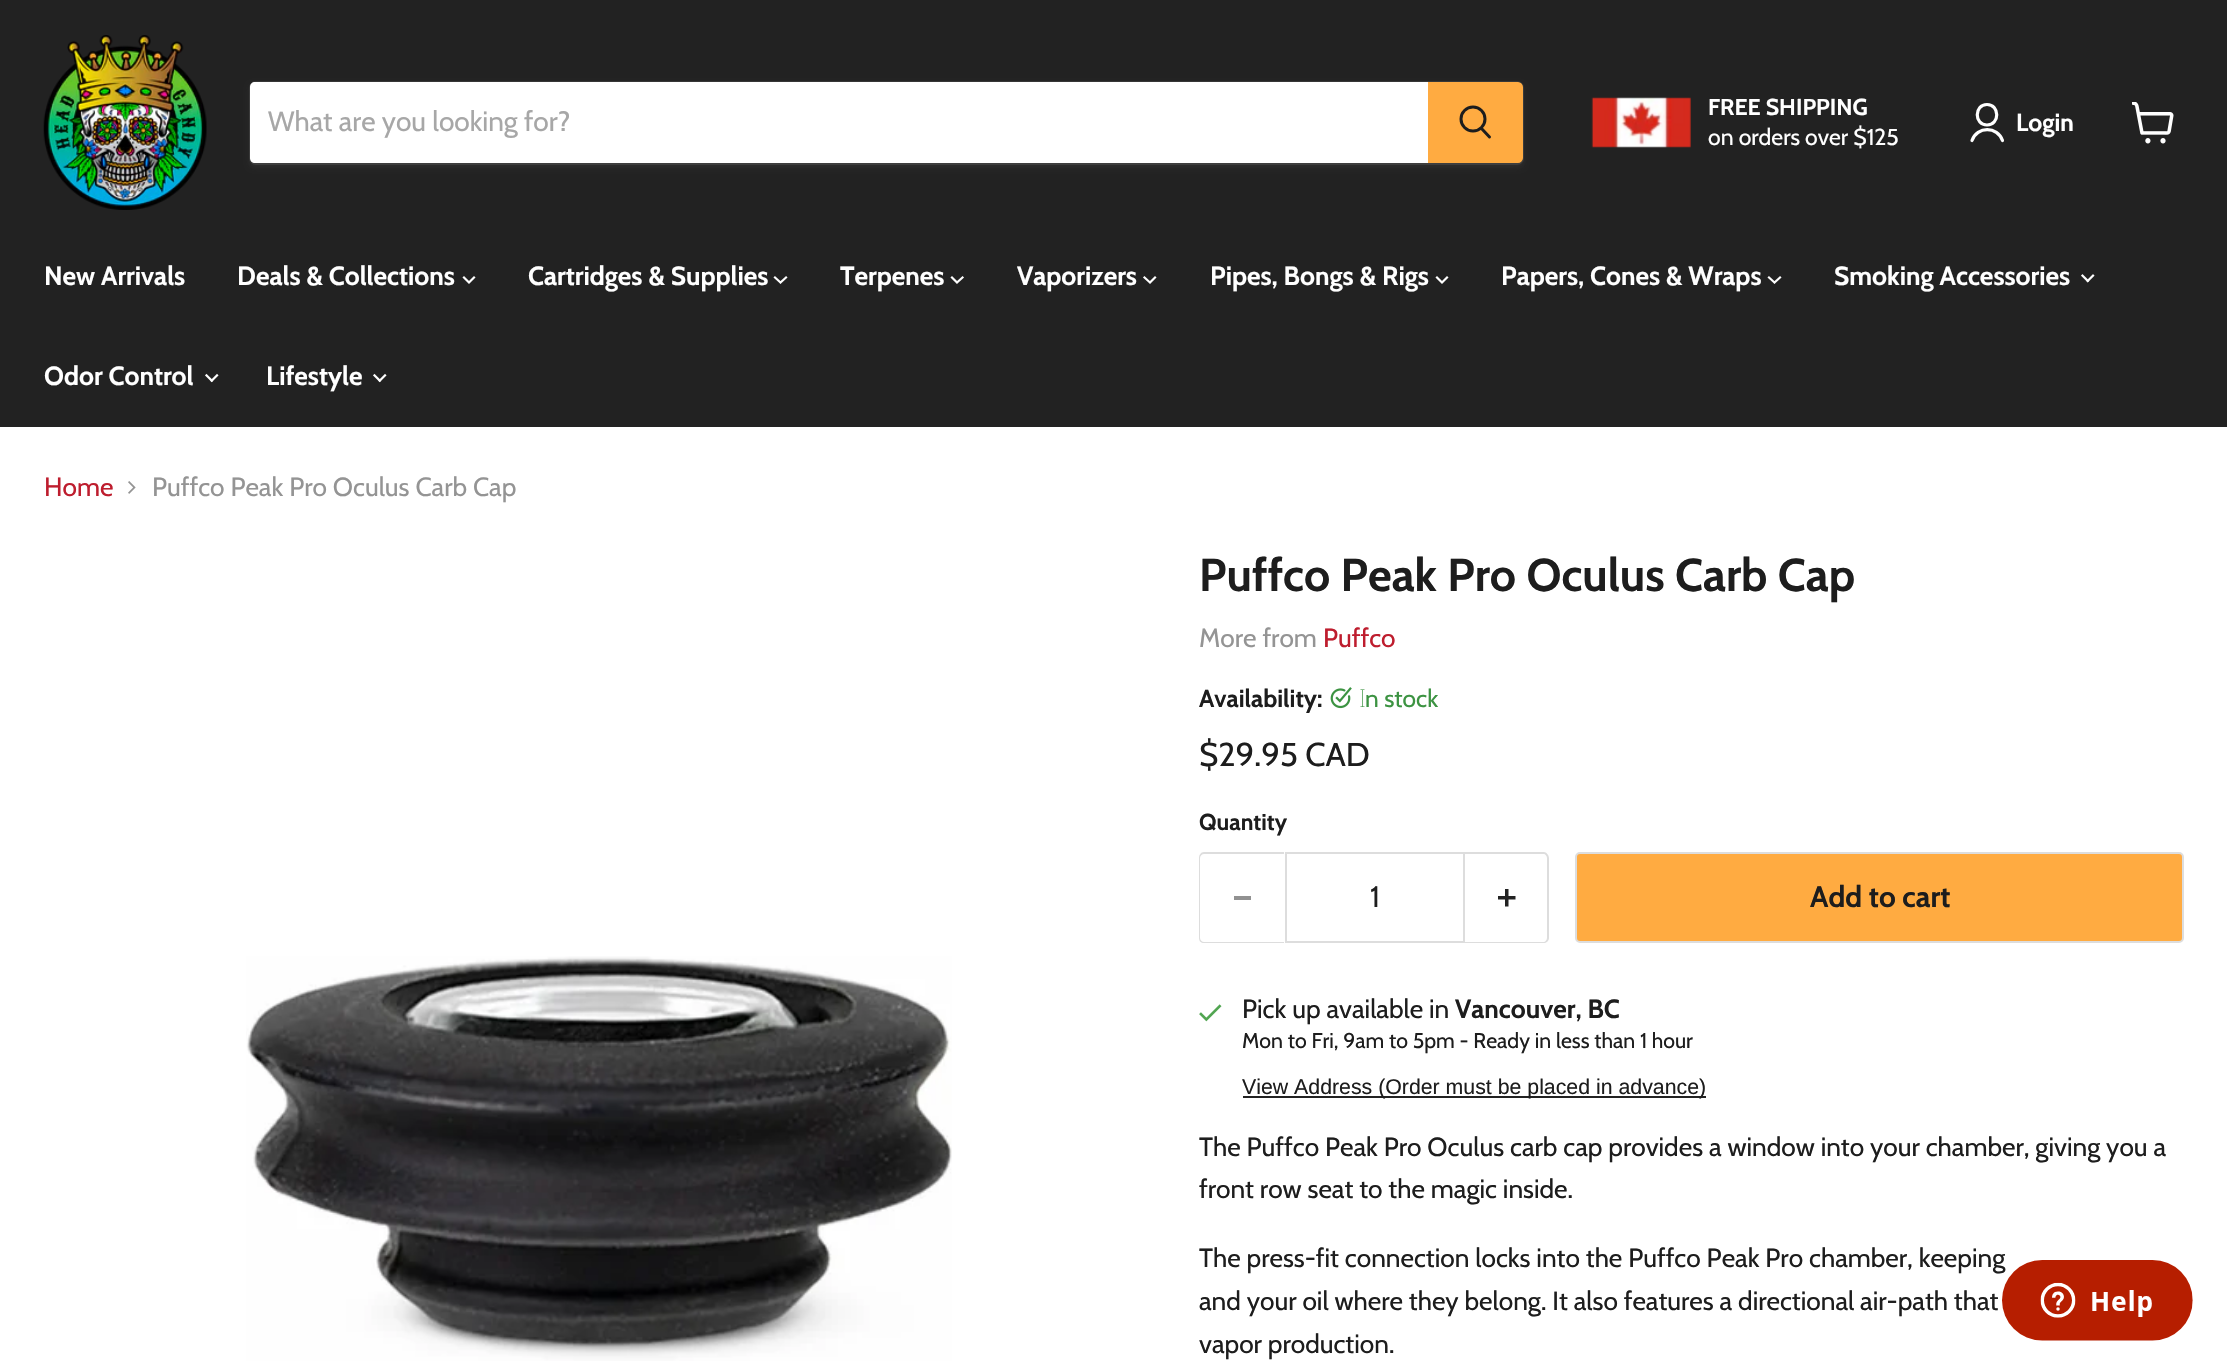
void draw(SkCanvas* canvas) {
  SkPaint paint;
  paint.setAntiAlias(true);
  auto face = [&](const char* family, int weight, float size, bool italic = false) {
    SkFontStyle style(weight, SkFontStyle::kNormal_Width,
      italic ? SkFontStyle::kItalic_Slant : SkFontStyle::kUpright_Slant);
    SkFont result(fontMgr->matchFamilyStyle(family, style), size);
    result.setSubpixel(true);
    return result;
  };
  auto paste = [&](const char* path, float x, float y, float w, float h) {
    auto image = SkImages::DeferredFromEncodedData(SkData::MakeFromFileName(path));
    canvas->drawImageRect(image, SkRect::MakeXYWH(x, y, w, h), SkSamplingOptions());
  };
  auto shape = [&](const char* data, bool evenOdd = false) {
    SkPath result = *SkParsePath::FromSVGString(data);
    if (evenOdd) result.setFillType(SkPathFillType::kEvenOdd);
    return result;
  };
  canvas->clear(0xffffffff);
  paint.setColor(0xff222222);
  canvas->drawRect(SkRect::MakeXYWH(0, 0, 2227, 427), paint);
  paste("img/1.png", 43, 35, 164, 175);
  paint.setColor(0x1c808080);
  paint.setMaskFilter(SkMaskFilter::MakeBlur(kNormal_SkBlurStyle, 2.5f));
  canvas->drawRoundRect(SkRect::MakeXYWH(249, 84, 1275, 84), 7, 7, paint);
  paint.setMaskFilter(nullptr);
  paint.setStroke(true);
  paint.setStrokeWidth(2);
  paint.setColor(0x33808080);
  canvas->drawRoundRect(SkRect::MakeXYWH(250, 82, 1273, 82), 6, 6, paint);
  paint.setStroke(false);
  paint.setColor(0xffffffff);
  canvas->drawPath(shape("M255 82H1428V163H255C252 163 250 161 250 158V87C250 84 252 82 255 82Z"), paint);
  paint.setColor(0xffffab41);
  canvas->drawPath(shape("M1429 83H1518C1520 83 1522 85 1522 87V158C1522 160 1520 162 1518 162H1429Z"), paint);
  paint.setStroke(true);
  canvas->drawPath(shape("M1429 83H1518C1520 83 1522 85 1522 87V158C1522 160 1520 162 1518 162H1429Z"), paint);
  paint.setStrokeWidth(3);
  paint.setStrokeCap(SkPaint::kRound_Cap);
  paint.setColor(0xff1d1d1d);
  canvas->drawPath(shape("M1489.5 137L1481.5 128.5"), paint);
  paint.setStrokeCap(SkPaint::kButt_Cap);
  canvas->drawCircle(1473, 119, 12, paint);
  paste("img/2.png", 1591, 97, 100, 51);
  paint.setStrokeWidth(3.2f);
  paint.setStrokeCap(SkPaint::kRound_Cap);
  paint.setStrokeJoin(SkPaint::kRound_Join);
  paint.setColor(0xffffffff);
  canvas->drawPath(shape("M1987 125C2000 125 2000 104.5 1987 104.5C1974 104.5 1974 125 1987 125ZM2002.5 140.5C1997.5 126 1977 126 1972 140.5"), paint);
  paste("img/3.png", 2132, 102, 42, 42);
  paint.setStrokeWidth(2.2f);
  paint.setStrokeCap(SkPaint::kSquare_Cap);
  paint.setStrokeJoin(SkPaint::kMiter_Join);
  canvas->drawPath(shape("M469 282.5L474 277.5M469 282.5L464 277.5"), paint);
  canvas->drawPath(shape("M780.5 282.5L786 277.5M780.5 282.5L775 277.5"), paint);
  canvas->drawPath(shape("M957 282.5L962.5 277.5M957 282.5L952 277.5"), paint);
  canvas->drawPath(shape("M1150 282.5L1155 277.5M1150 282.5L1144.5 277.5"), paint);
  canvas->drawPath(shape("M1442 282.5L1447 277.5M1442 282.5L1437 277.5"), paint);
  canvas->drawPath(shape("M1774.5 282.5L1780 277.5M1774.5 282.5L1769 277.5"), paint);
  paste("img/4.png", 2081, 274, 14, 9);
  paste("img/5.png", 205, 373, 14, 10);
  paste("img/5.png", 373, 373, 14, 10);
  paste("img/6.png", 128, 481, 8, 13);
  paste("img/7.png", 246, 956, 706, 405);
  paste("img/8.png", 1330, 687, 22, 22);
  paint.setStroke(false);
  paint.setColor(0xffdddddd);
  canvas->drawPath(shape("M1204 852H1284V943H1204C1201 943 1199 941 1199 938V858C1199 855 1201 852 1204 852ZM1204 854H1284V942H1204C1202 942 1200 940 1200 938V858C1200 856 1202 854 1204 854Z", true), paint);
  paint.setColor(0xff919191);
  canvas->drawRect(SkRect::MakeXYWH(1234, 896, 17, 4), paint);
  paint.setStroke(true);
  paint.setStrokeWidth(2);
  paint.setStrokeCap(SkPaint::kButt_Cap);
  paint.setColor(0xffdddddd);
  canvas->drawRect(SkRect::MakeXYWH(1286, 853, 178, 89), paint);
  paint.setStroke(false);
  canvas->drawPath(shape("M1465 852H1544C1546 852 1549 855 1549 858V938C1549 941 1546 943 1544 943H1465ZM1465 854H1544C1545 854 1547 856 1547 858V938C1547 940 1545 942 1544 942H1465Z", true), paint);
  paste("img/9.png", 1498, 889, 18, 18);
  paint.setColor(0xffffab41);
  canvas->drawRoundRect(SkRect::MakeXYWH(1576, 853, 607, 89), 4, 4, paint);
  paint.setStroke(true);
  paint.setColor(0xffdddddd);
  canvas->drawRoundRect(SkRect::MakeXYWH(1576, 853, 607, 89), 4, 4, paint);
  paste("img/10.png", 1199, 1004, 23, 18);
  paint.setStroke(false);
  paint.setColor(0xff222222);
  canvas->drawRect(SkRect::MakeXYWH(1243, 1096, 463, 2), paint);
  auto f0 = face("Cabin", 400, 28);
  paint.setColor(0xffa7a7a7);
  canvas->drawString("What are you looking for?", 268, 131, f0, paint);
  auto f1 = face("Cabin", 700, 23);
  paint.setColor(0xffffffff);
  canvas->drawString("FREE SHIPPING", 1708, 115, f1, paint);
  auto f2 = face("Cabin", 400, 23);
  canvas->drawString("on orders over $125", 1708, 145, f2, paint);
  auto f3 = face("Cabin", 700, 24.5f);
  canvas->drawString("Login", 2016, 131, f3, paint);
  auto f4 = face("Cabin", 700, 26.25f);
  {
    const struct { const char* s; float x, y; } items[] = {
      {"New Arrivals", 44, 285},
      {"Deals & Collections", 237, 285},
      {"Cartridges & Supplies", 528, 285},
      {"Terpenes", 840, 285},
      {"Vaporizers", 1017, 285},
      {"Pipes, Bongs & Rigs", 1210, 285},
      {"Papers, Cones & Wraps", 1501, 285},
      {"Smoking Accessories", 1834, 285},
      {"Odor Control", 44, 385},
      {"Lifestyle", 266, 385},
    };
    for (auto [s, x, y] : items) {
      canvas->drawString(s, x, y, f4, paint);
    }
  }
  auto f5 = face("Cabin", 400, 26.25f);
  paint.setColor(0xffbe1d2e);
  canvas->drawString("Home", 44, 496, f5, paint);
  paint.setColor(0xff949494);
  canvas->drawString("Puffco Peak Pro Oculus Carb Cap", 152, 496, f5, paint);
  auto f6 = face("Cabin", 700, 46);
  paint.setColor(0xff1d1d1d);
  canvas->drawString("Puffco Peak Pro Oculus Carb Cap", 1199, 591, f6, paint);
  paint.setColor(0xff949494);
  canvas->drawString("More from", 1199, 647, f5, paint);
  paint.setColor(0xffbe1d2e);
  canvas->drawString("Puffco", 1323, 647, f5, paint);
  paint.setColor(0xff1d1d1d);
  canvas->drawString("Availability:", 1199, 707, f3, paint);
  auto f7 = face("Noto Sans", 100, 24.5f);
  paint.setColor(0xff3c9342);
  canvas->drawString("I", 1359, 707, f7, paint);
  auto f8 = face("Cabin", 400, 24.5f);
  canvas->drawString("n stock", 1365, 707, f8, paint);
  auto f9 = face("Cabin", 400, 33);
  paint.setColor(0xff1d1d1d);
  canvas->drawString("$29.95 CAD", 1199, 766, f9, paint);
  canvas->drawString("Quantity", 1199, 830, f1, paint);
  auto f10 = face("Cabin", 400, 29.5f);
  canvas->drawString("1", 1370, 907, f10, paint);
  auto f11 = face("Cabin", 700, 29.5f);
  canvas->drawString("Add to cart", 1810, 907, f11, paint);
  canvas->drawString("Pick up available in", 1242, 1018, f5, paint);
  canvas->drawString("Vancouver, BC", 1455, 1018, f4, paint);
  auto f12 = face("Cabin", 400, 21.3f);
  canvas->drawString("Mon to Fri, 9am to 5pm - Ready in less than 1 hour", 1242, 1048, f12, paint);
  auto f13 = face("Liberation Sans", 400, 21.3f);
  canvas->drawString("View Address (Order must be placed in advance)", 1242, 1094, f13, paint);
  {
    const struct { const char* s; float x, y; } items[] = {
      {"The Puffco Peak Pro Oculus carb cap provides a window into your chamber, giving you a", 1199, 1156},
      {"front row seat to the magic inside.", 1199, 1198},
      {"The press-fit connection locks into the Puffco Peak Pro chamber, keeping", 1199, 1267},
      {"and your oil where they belong. It also features a directional air-path that", 1199, 1310},
      {"vapor production.", 1199, 1353},
    };
    for (auto [s, x, y] : items) {
      canvas->drawString(s, x, y, f5, paint);
    }
  }
  paste("img/11.png", 2002, 1260, 191, 81);
}
